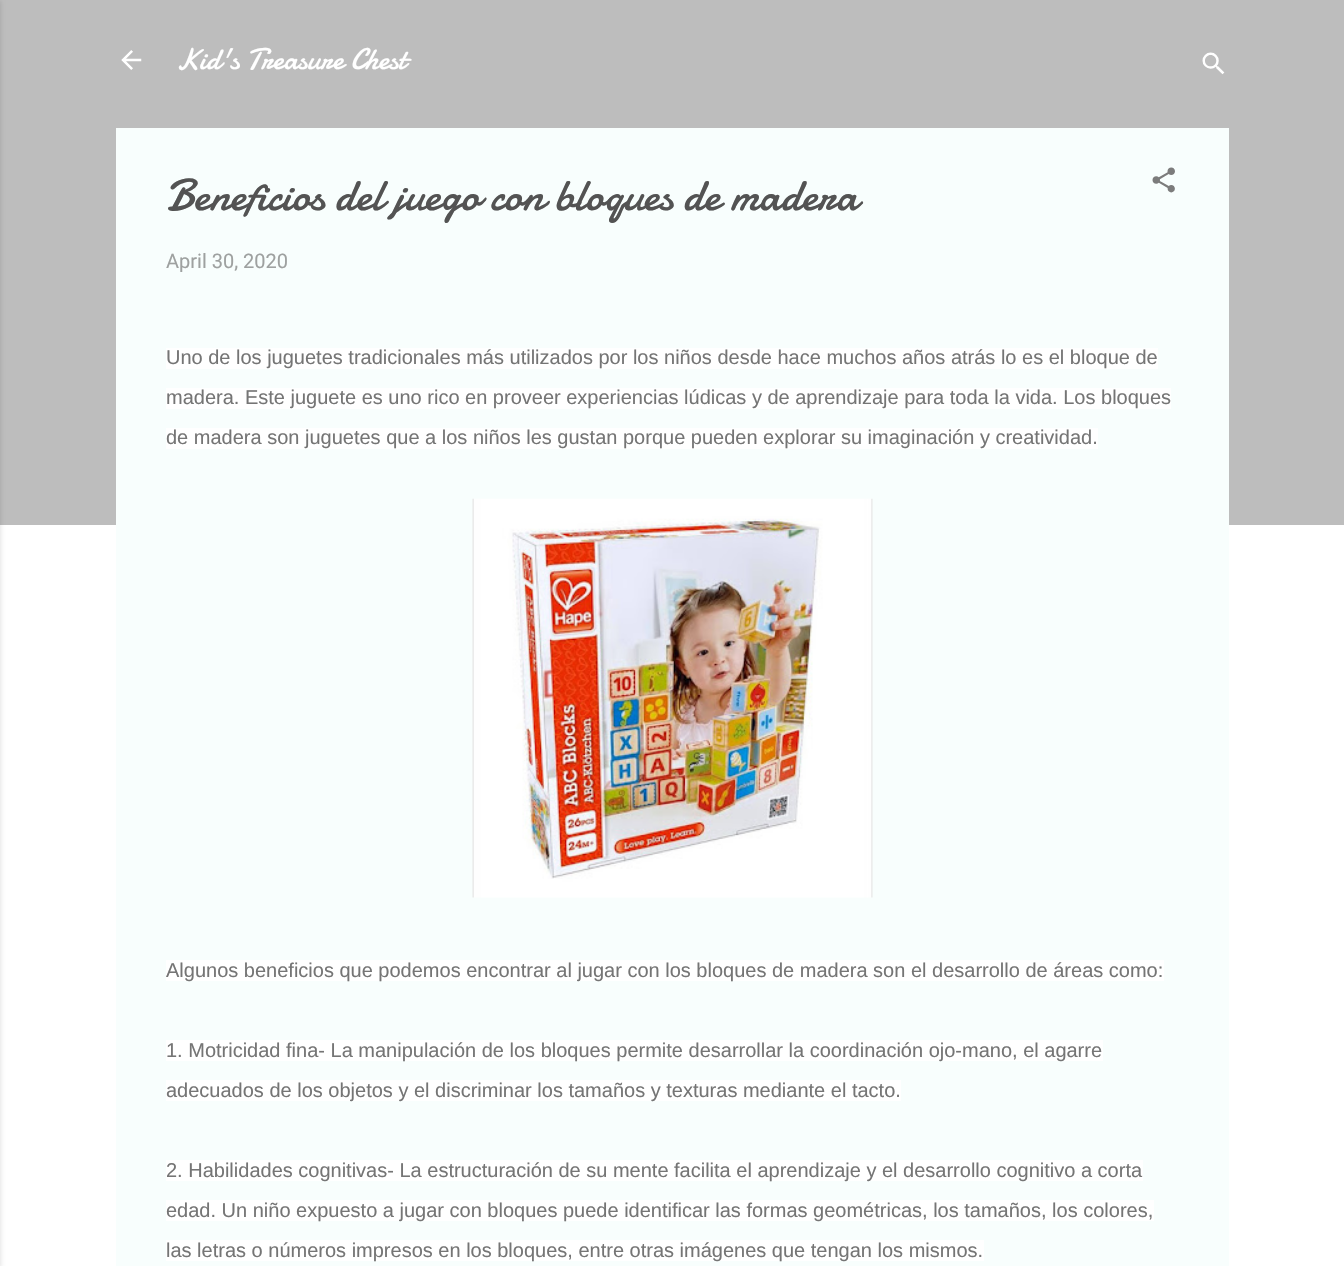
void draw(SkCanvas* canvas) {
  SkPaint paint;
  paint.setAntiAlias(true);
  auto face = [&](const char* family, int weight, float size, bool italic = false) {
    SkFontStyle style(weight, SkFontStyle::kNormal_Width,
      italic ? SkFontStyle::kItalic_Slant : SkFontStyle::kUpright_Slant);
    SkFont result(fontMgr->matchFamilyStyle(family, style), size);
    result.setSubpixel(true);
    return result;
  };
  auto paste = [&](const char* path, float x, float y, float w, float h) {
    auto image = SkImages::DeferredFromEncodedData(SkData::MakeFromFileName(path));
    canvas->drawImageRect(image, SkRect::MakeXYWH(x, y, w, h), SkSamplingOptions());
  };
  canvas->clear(0xffffffff);
  paint.setColor(0xffbdbdbd);
  canvas->drawRect(SkRect::MakeXYWH(0, 0, 1344, 525), paint);
  paint.setColor(0x1a000000);
  paint.setMaskFilter(SkMaskFilter::MakeBlur(kNormal_SkBlurStyle, 2));
  canvas->drawRect(SkRect::MakeXYWH(-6, 1, 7, 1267), paint);
  paint.setMaskFilter(nullptr);
  paste("img/1.png", 121, 50, 21, 20);
  paste("img/2.png", 1202, 52, 23, 23);
  paint.setColor(0xfff8fefd);
  canvas->drawRect(SkRect::MakeXYWH(116, 128, 1113, 1138), paint);
  paste("img/3.png", 1152, 167, 23, 26);
  {
    const struct { float x, y, w, h; SkColor color; } items[] = {
      {166, 348, 992, 21, 0xffffffff},
      {166, 388, 1005, 21, 0xffffffff},
      {166, 428, 932, 21, 0xffffffff},
    };
    for (auto [x, y, w, h, color] : items) {
      paint.setColor(color);
      canvas->drawRect(SkRect::MakeXYWH(x, y, w, h), paint);
    }
  }
  paste("img/4.png", 472, 498, 401, 400);
  {
    const struct { float x, y, w, h; SkColor color; } items[] = {
      {166, 960, 998, 21, 0xffffffff},
      {166, 1040, 937, 21, 0xffffffff},
      {166, 1080, 735, 21, 0xffffffff},
      {166, 1160, 977, 21, 0xffffffff},
      {166, 1200, 988, 21, 0xffffffff},
      {166, 1240, 818, 21, 0xffffffff},
    };
    for (auto [x, y, w, h, color] : items) {
      paint.setColor(color);
      canvas->drawRect(SkRect::MakeXYWH(x, y, w, h), paint);
    }
  }
  auto f0 = face("Damion", 400, 30);
  canvas->drawString("Kid's Treasure Chest", 176, 69, f0, paint);
  auto f1 = face("Damion", 400, 45);
  paint.setColor(0xff535353);
  canvas->drawString("Beneficios del juego con bloques de madera", 166, 210, f1, paint);
  auto f2 = face("Roboto", 400, 20);
  paint.setColor(0xff9ea1a0);
  canvas->drawString("April 30, 2020", 166, 268, f2, paint);
  auto f3 = face("Liberation Sans", 400, 20);
  paint.setColor(0xff757575);
  {
    const struct { const char* s; float x, y; } items[] = {
      {"Uno de los juguetes tradicionales más utilizados por los niños desde hace muchos años atrás lo es el bloque de", 166, 364},
      {"madera. Este juguete es uno rico en proveer experiencias lúdicas y de aprendizaje para toda la vida. Los bloques", 166, 404},
      {"de madera son juguetes que a los niños les gustan porque pueden explorar su imaginación y creatividad.", 166, 444},
      {"Algunos beneficios que podemos encontrar al jugar con los bloques de madera son el desarrollo de áreas como:", 166, 977},
      {"1. Motricidad fina- La manipulación de los bloques permite desarrollar la coordinación ojo-mano, el agarre", 166, 1057},
      {"adecuados de los objetos y el discriminar los tamaños y texturas mediante el tacto.", 166, 1097},
      {"2. Habilidades cognitivas- La estructuración de su mente facilita el aprendizaje y el desarrollo cognitivo a corta", 166, 1177},
      {"edad. Un niño expuesto a jugar con bloques puede identificar las formas geométricas, los tamaños, los colores,", 166, 1217},
      {"las letras o números impresos en los bloques, entre otras imágenes que tengan los mismos.", 166, 1257},
    };
    for (auto [s, x, y] : items) {
      canvas->drawString(s, x, y, f3, paint);
    }
  }
}
